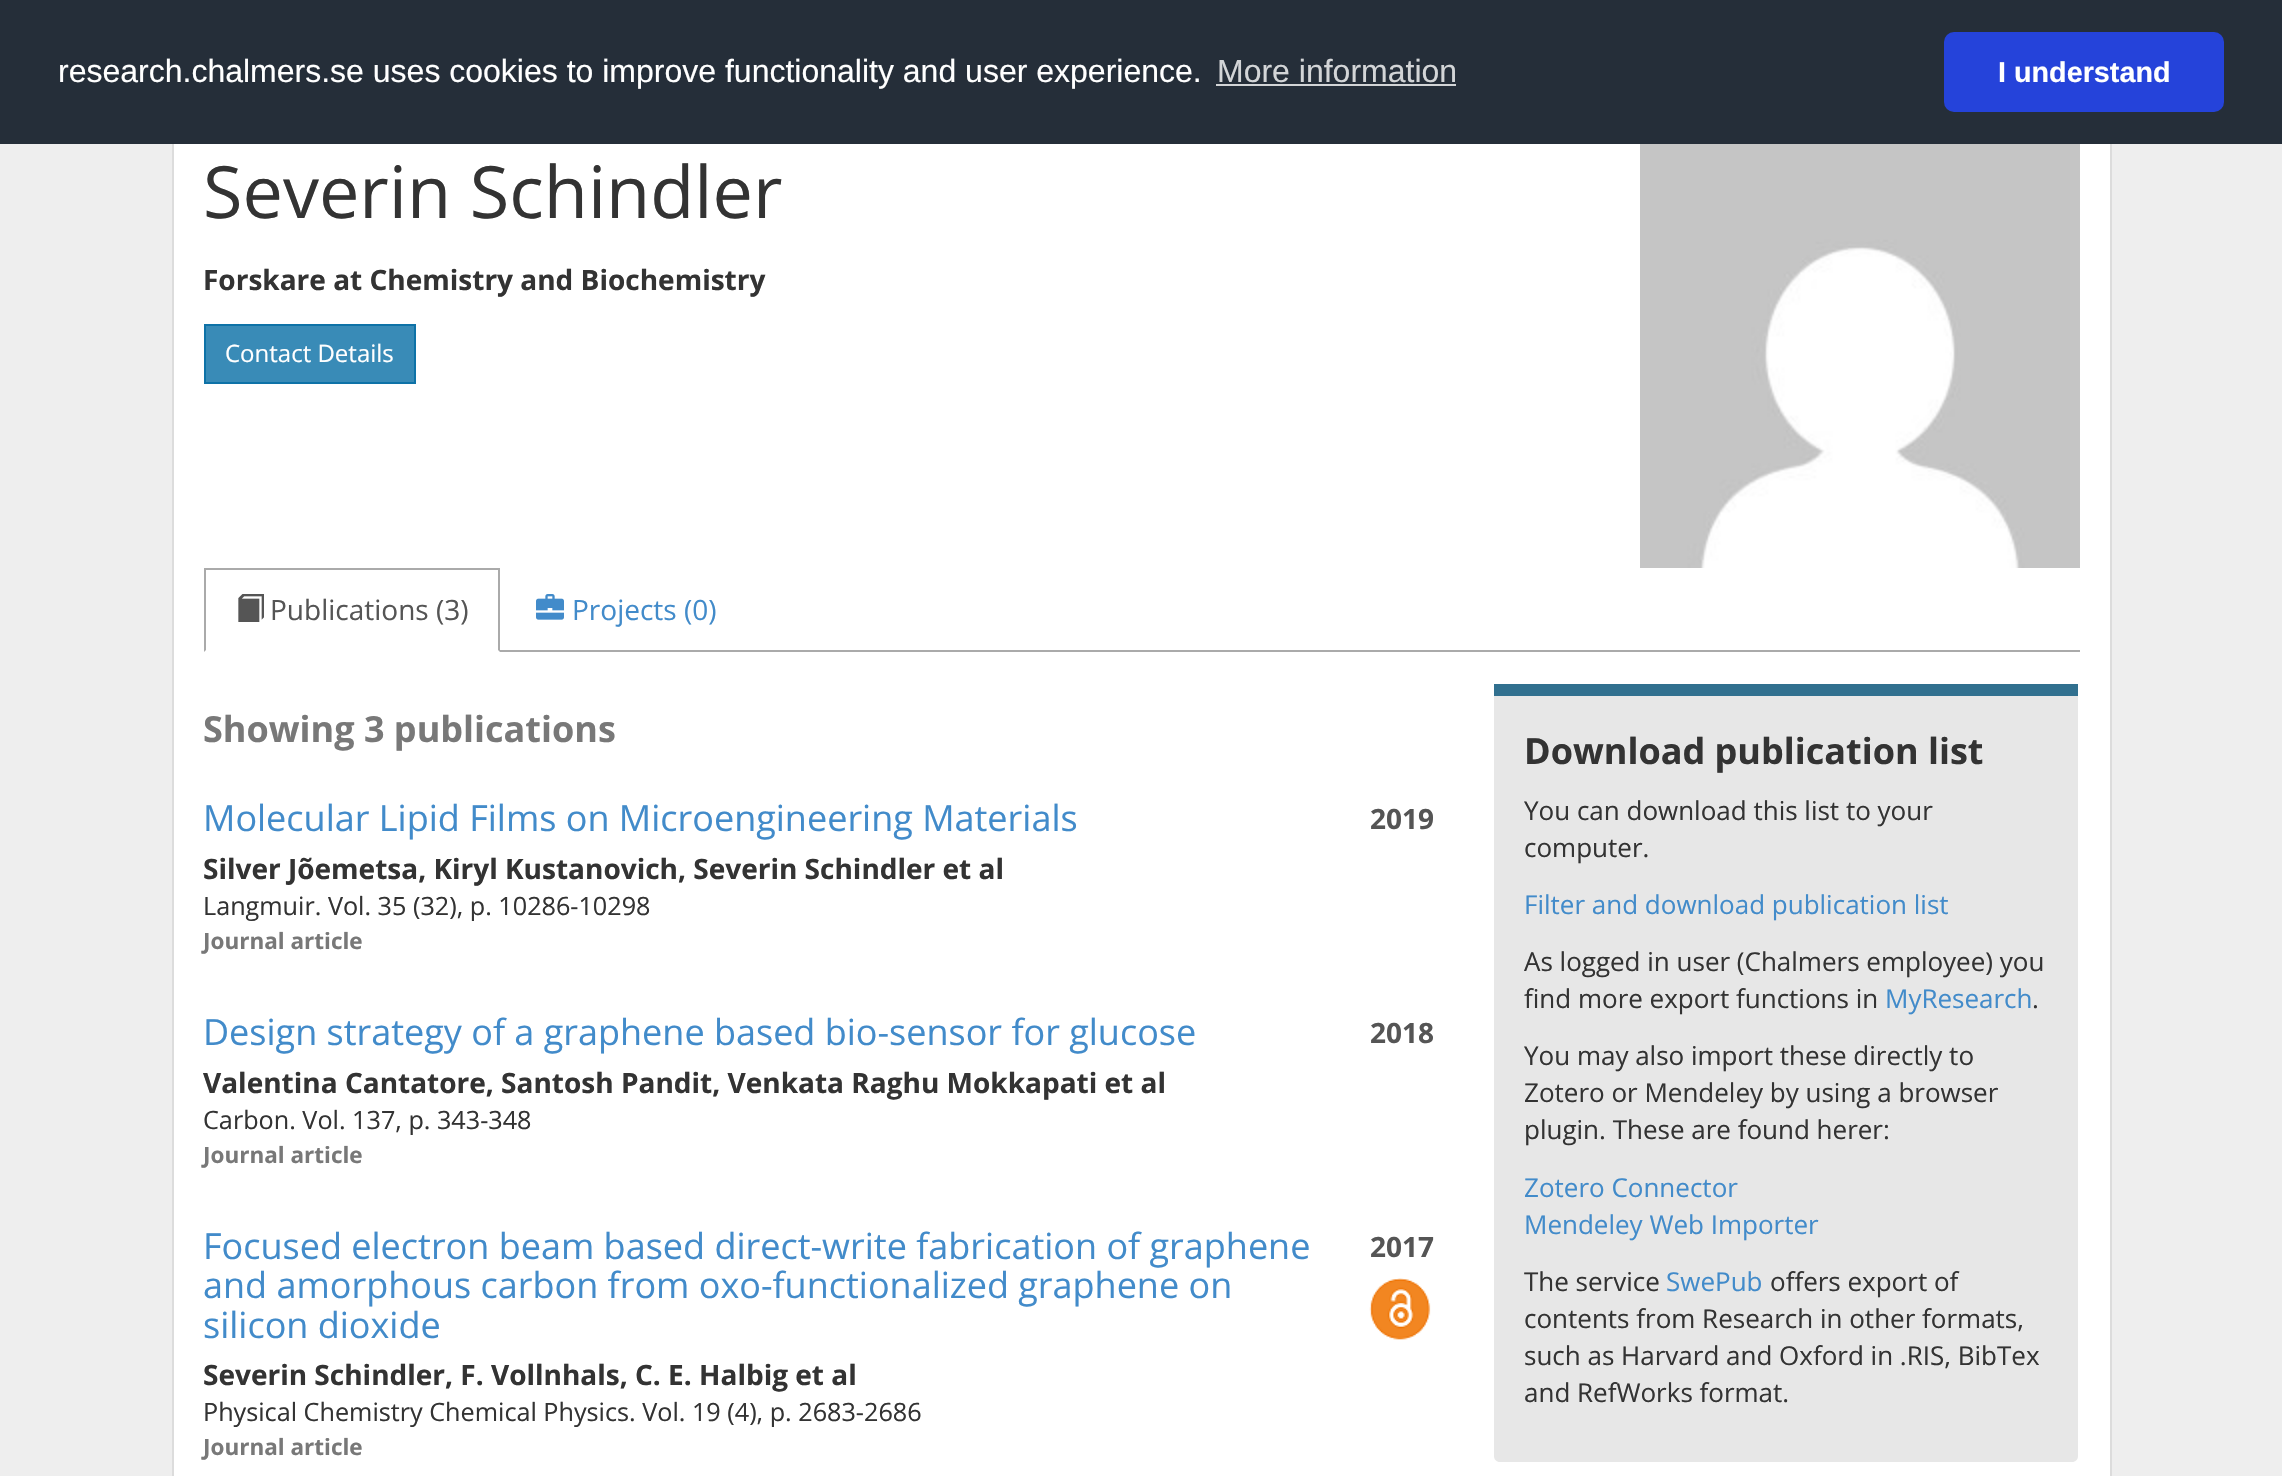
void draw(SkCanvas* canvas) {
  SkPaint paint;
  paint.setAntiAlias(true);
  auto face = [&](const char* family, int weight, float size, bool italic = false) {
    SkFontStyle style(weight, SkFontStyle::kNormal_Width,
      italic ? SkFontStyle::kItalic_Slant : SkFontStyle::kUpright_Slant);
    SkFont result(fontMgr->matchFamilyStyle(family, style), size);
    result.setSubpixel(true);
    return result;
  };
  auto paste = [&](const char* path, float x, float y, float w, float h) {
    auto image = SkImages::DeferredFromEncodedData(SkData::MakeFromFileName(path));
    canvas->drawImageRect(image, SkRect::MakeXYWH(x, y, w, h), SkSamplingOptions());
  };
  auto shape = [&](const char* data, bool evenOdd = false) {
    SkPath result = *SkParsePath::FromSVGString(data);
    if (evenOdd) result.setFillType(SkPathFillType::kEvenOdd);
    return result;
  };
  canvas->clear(0xffeeeeee);
  paint.setColor(0xff252e39);
  canvas->drawRect(SkRect::MakeXYWH(0, 0, 2282, 144), paint);
  paint.setColor(0xffd3d5d7);
  canvas->drawRect(SkRect::MakeXYWH(1216, 84, 240, 2), paint);
  paint.setColor(0xff2543da);
  canvas->drawRoundRect(SkRect::MakeXYWH(1944, 32, 280, 80), 10, 10, paint);
  {
    const struct { float x, y, w, h; SkColor color; } items[] = {
      {174, 144, 1936, 1332, 0xffffffff},
      {2110, 144, 2, 1332, 0xffdcdcdc},
      {172, 144, 2, 1332, 0xffdcdcdc},
    };
    for (auto [x, y, w, h, color] : items) {
      paint.setColor(color);
      canvas->drawRect(SkRect::MakeXYWH(x, y, w, h), paint);
    }
  }
  paint.setColor(0xff398bb7);
  canvas->drawRect(SkRect::MakeXYWH(205, 325, 210, 58), paint);
  paint.setStroke(true);
  paint.setStrokeWidth(2);
  paint.setColor(0xff0e72a7);
  canvas->drawRect(SkRect::MakeXYWH(205, 325, 210, 58), paint);
  paste("img/1.png", 1640, 144, 440, 424);
  paint.setStroke(false);
  paint.setColor(0xffaaaaaa);
  canvas->drawRect(SkRect::MakeXYWH(500, 650, 1580, 2), paint);
  canvas->drawRect(SkRect::MakeXYWH(204, 568, 296, 2), paint);
  canvas->drawPath(shape("M500 568V652L498 650V570Z"), paint);
  canvas->drawPath(shape("M204 652V568L206 570V650Z"), paint);
  paste("img/2.png", 238, 594, 26, 28);
  paste("img/3.png", 536, 594, 28, 26);
  paste("img/4.png", 1369, 1278, 62, 62);
  paint.setColor(0xff31708f);
  canvas->drawRect(SkRect::MakeXYWH(1494, 684, 584, 12), paint);
  paint.setColor(0xffe7e7e7);
  canvas->drawPath(shape("M1494 696H2078V1456C2078 1459.5 2075.5 1462 2072 1462H1500C1496.5 1462 1494 1459.5 1494 1456Z"), paint);
  auto f0 = face("Liberation Sans", 400, 32);
  paint.setColor(0xffffffff);
  canvas->drawString("research.chalmers.se uses cookies to improve functionality and user experience.", 58, 82, f0, paint);
  paint.setColor(0xffd3d5d7);
  canvas->drawString("More information", 1217, 82, f0, paint);
  auto f1 = face("Liberation Sans", 700, 28.75f);
  paint.setColor(0xffffffff);
  canvas->drawString("I understand", 1998, 82, f1, paint);
  auto f2 = face("Open Sans", 400, 72);
  paint.setColor(0xff333333);
  canvas->drawString("Severin Schindler", 203, 218, f2, paint);
  auto f3 = face("Open Sans", 700, 28);
  canvas->drawString("Forskare at Chemistry and Biochemistry", 203, 290, f3, paint);
  auto f4 = face("Open Sans", 400, 24);
  paint.setColor(0xffffffff);
  canvas->drawString("Contact Details", 225, 362, f4, paint);
  auto f5 = face("Open Sans", 400, 28);
  paint.setColor(0xff555555);
  canvas->drawString("Publications (3)", 270, 620, f5, paint);
  paint.setColor(0xff428bca);
  canvas->drawString("Projects (0)", 572, 620, f5, paint);
  auto f6 = face("Open Sans", 700, 36);
  paint.setColor(0xff787878);
  canvas->drawString("Showing 3 publications", 203, 742, f6, paint);
  auto f7 = face("Open Sans", 400, 36);
  paint.setColor(0xff428bca);
  canvas->drawString("Molecular Lipid Films on Microengineering Materials", 203, 831, f7, paint);
  paint.setColor(0xff555555);
  canvas->drawString("2019", 1370, 829, f3, paint);
  paint.setColor(0xff333333);
  canvas->drawString("Silver Jõemetsa, Kiryl Kustanovich, Severin Schindler et al", 203, 879, f3, paint);
  auto f8 = face("Open Sans", 400, 25.2f);
  canvas->drawString("Langmuir. Vol. 35 (32), p. 10286-10298", 203, 915, f8, paint);
  auto f9 = face("Open Sans", 700, 22.5f);
  paint.setColor(0xff787878);
  canvas->drawString("Journal article", 203, 949, f9, paint);
  paint.setColor(0xff428bca);
  canvas->drawString("Design strategy of a graphene based bio-sensor for glucose", 203, 1045, f7, paint);
  paint.setColor(0xff555555);
  canvas->drawString("2018", 1370, 1043, f3, paint);
  paint.setColor(0xff333333);
  canvas->drawString("Valentina Cantatore, Santosh Pandit, Venkata Raghu Mokkapati et al", 203, 1093, f3, paint);
  canvas->drawString("Carbon. Vol. 137, p. 343-348", 203, 1129, f8, paint);
  paint.setColor(0xff787878);
  canvas->drawString("Journal article", 203, 1163, f9, paint);
  paint.setColor(0xff428bca);
  {
    const struct { const char* s; float x, y; } items[] = {
      {"Focused electron beam based direct-write fabrication of graphene", 203, 1259},
      {"and amorphous carbon from oxo-functionalized graphene on", 203, 1298},
      {"silicon dioxide", 203, 1338},
    };
    for (auto [s, x, y] : items) {
      canvas->drawString(s, x, y, f7, paint);
    }
  }
  paint.setColor(0xff555555);
  canvas->drawString("2017", 1370, 1257, f3, paint);
  paint.setColor(0xff333333);
  canvas->drawString("Severin Schindler, F. Vollnhals, C. E. Halbig et al", 203, 1385, f3, paint);
  canvas->drawString("Physical Chemistry Chemical Physics. Vol. 19 (4), p. 2683-2686", 203, 1421, f8, paint);
  paint.setColor(0xff787878);
  canvas->drawString("Journal article", 203, 1455, f9, paint);
  paint.setColor(0xff333333);
  canvas->drawString("Download publication list", 1524, 764, f6, paint);
  auto f10 = face("Open Sans", 400, 26);
  canvas->drawString("You can download this list to your", 1524, 820, f10, paint);
  canvas->drawString("computer.", 1524, 857, f10, paint);
  paint.setColor(0xff428bca);
  canvas->drawString("Filter and download publication list", 1524, 914, f10, paint);
  paint.setColor(0xff333333);
  canvas->drawString("As logged in user (Chalmers employee) you", 1524, 971, f10, paint);
  canvas->drawString("find more export functions in", 1524, 1008, f10, paint);
  paint.setColor(0xff428bca);
  canvas->drawString("MyResearch", 1885, 1008, f10, paint);
  paint.setColor(0xff333333);
  {
    const struct { const char* s; float x, y; } items[] = {
      {".", 2032, 1008},
      {"You may also import these directly to", 1524, 1065},
      {"Zotero or Mendeley by using a browser", 1524, 1102},
      {"plugin. These are found herer:", 1524, 1139},
    };
    for (auto [s, x, y] : items) {
      canvas->drawString(s, x, y, f10, paint);
    }
  }
  paint.setColor(0xff428bca);
  canvas->drawString("Zotero Connector", 1524, 1197, f10, paint);
  canvas->drawString("Mendeley Web Importer", 1524, 1234, f10, paint);
  paint.setColor(0xff333333);
  canvas->drawString("The service", 1524, 1291, f10, paint);
  paint.setColor(0xff428bca);
  canvas->drawString("SwePub", 1666, 1291, f10, paint);
  paint.setColor(0xff333333);
  {
    const struct { const char* s; float x, y; } items[] = {
      {"offers export of", 1770, 1291},
      {"contents from Research in other formats,", 1524, 1328},
      {"such as Harvard and Oxford in .RIS, BibTex", 1524, 1365},
      {"and RefWorks format.", 1524, 1402},
    };
    for (auto [s, x, y] : items) {
      canvas->drawString(s, x, y, f10, paint);
    }
  }
}
